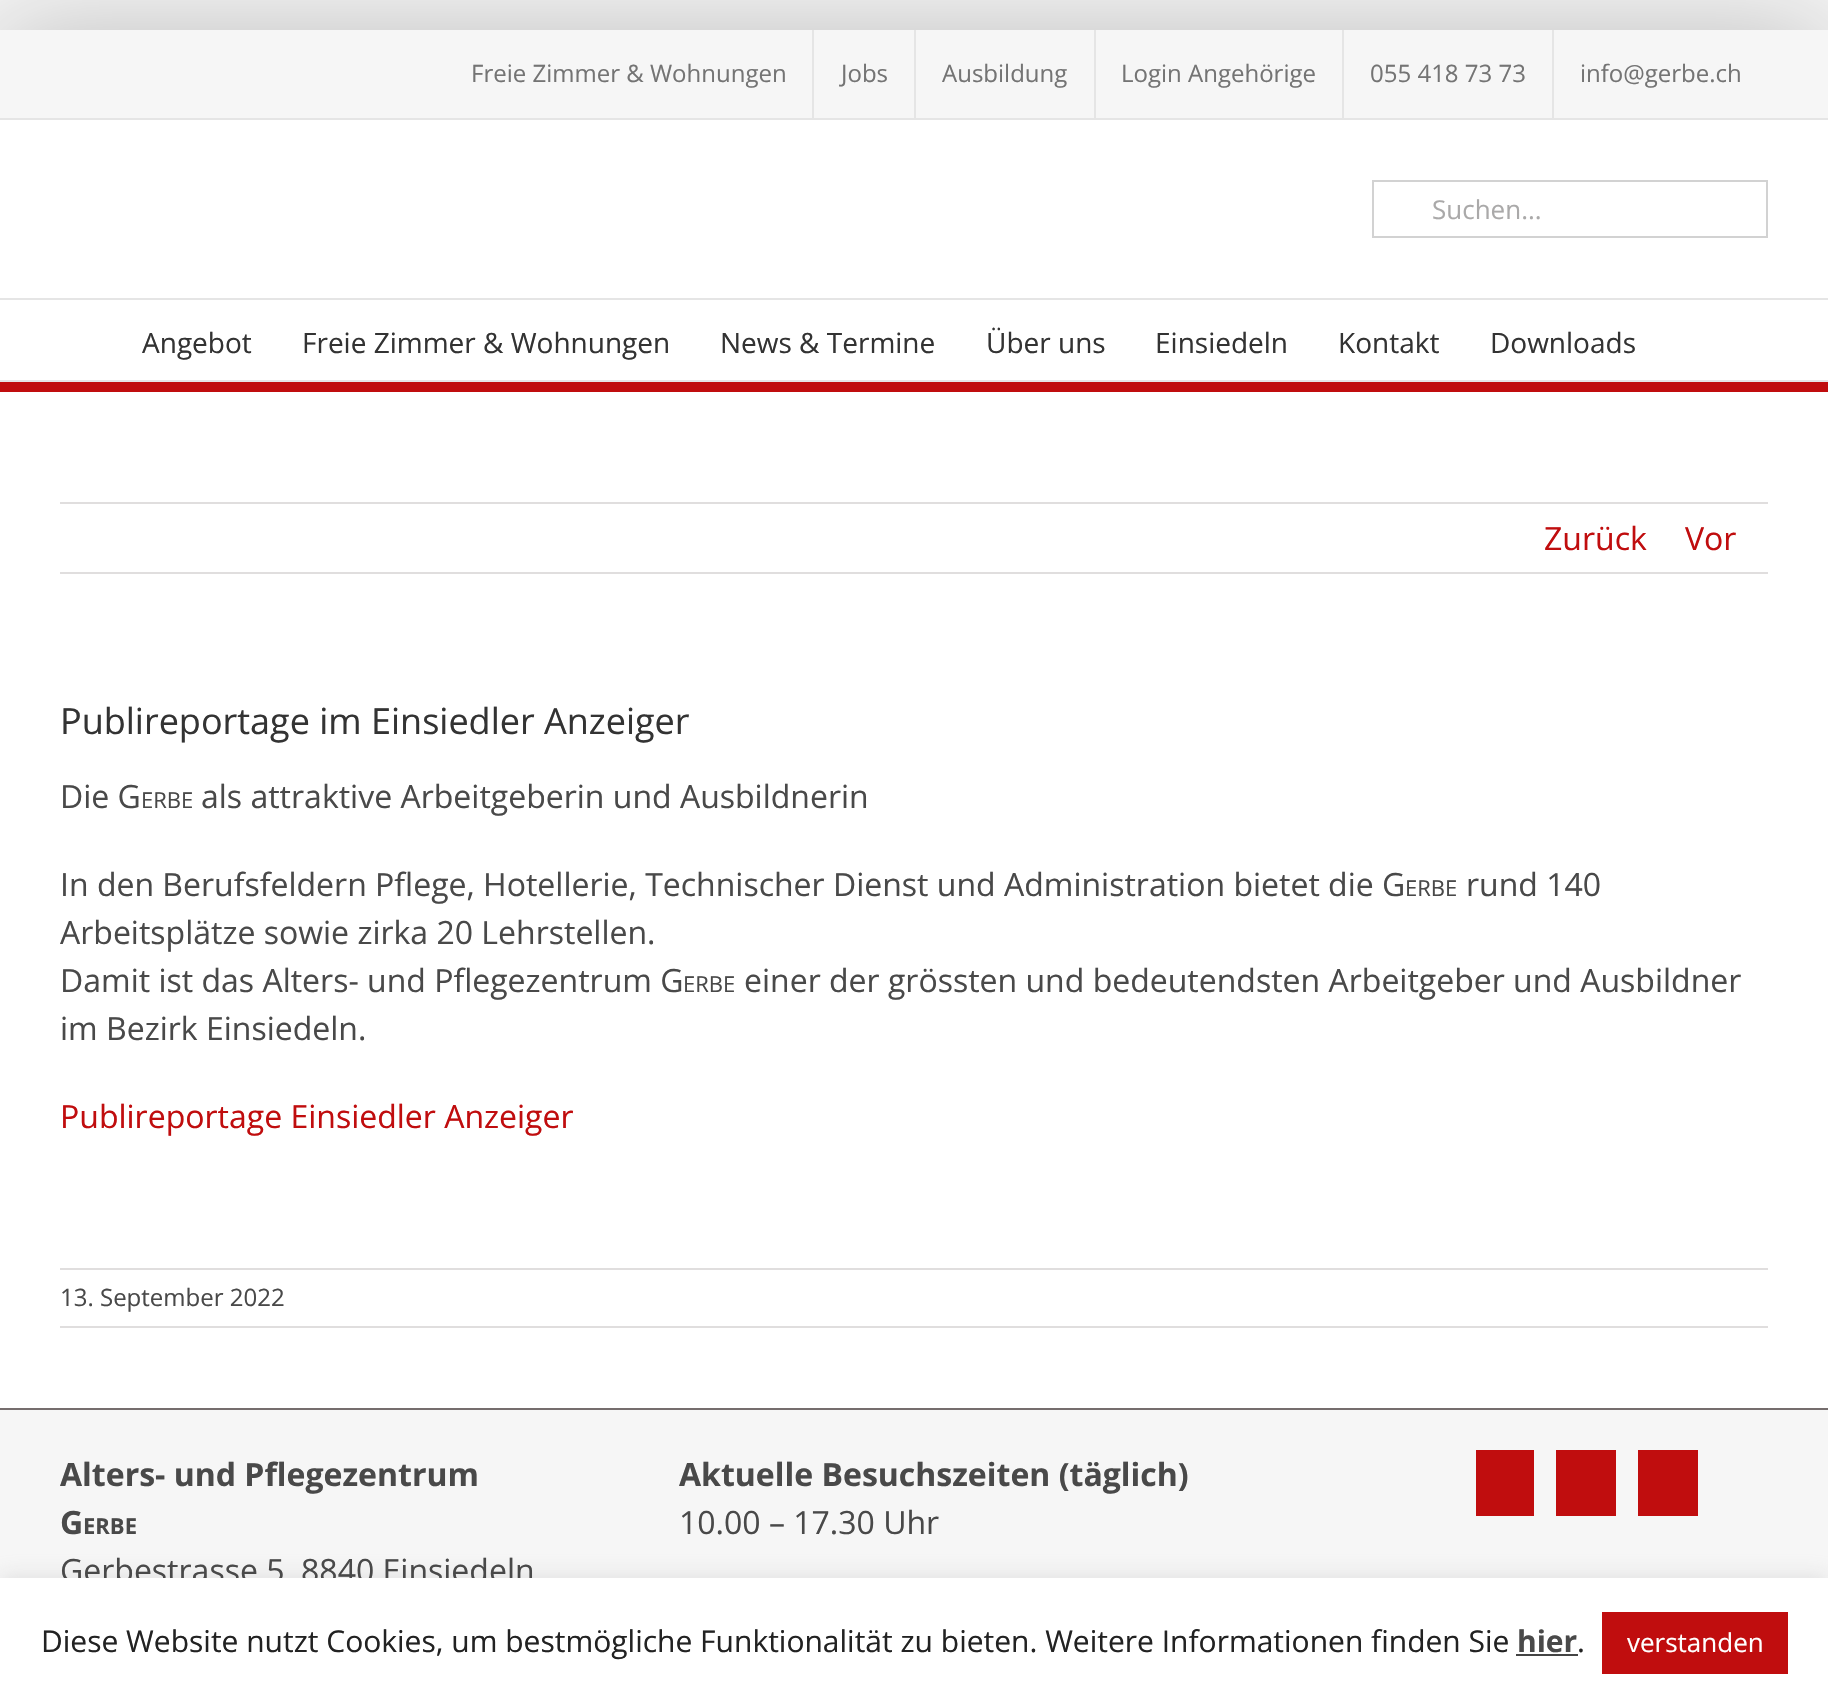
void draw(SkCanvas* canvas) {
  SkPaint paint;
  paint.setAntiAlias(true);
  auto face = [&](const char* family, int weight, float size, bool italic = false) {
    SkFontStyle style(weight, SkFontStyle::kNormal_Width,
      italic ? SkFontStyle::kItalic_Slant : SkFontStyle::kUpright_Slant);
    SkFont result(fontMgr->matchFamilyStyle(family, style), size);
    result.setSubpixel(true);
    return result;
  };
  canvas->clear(0xfff6f6f6);
  canvas->save();
  canvas->clipRect(SkRect::MakeXYWH(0, 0, 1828, 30));
  paint.setColor(0x38000000);
  paint.setMaskFilter(SkMaskFilter::MakeBlur(kNormal_SkBlurStyle, 50));
  canvas->drawRect(SkRect::MakeXYWH(-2, 28, 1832, 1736), paint);
  paint.setMaskFilter(nullptr);
  canvas->restore();
  {
    const struct { float x, y, w, h; SkColor color; } items[] = {
      {0, 118, 1828, 2, 0xffe5e5e5},
      {812, 30, 2, 88, 0xffe5e5e5},
      {914, 30, 2, 88, 0xffe5e5e5},
      {1094, 30, 2, 88, 0xffe5e5e5},
      {1342, 30, 2, 88, 0xffe5e5e5},
      {1552, 30, 2, 88, 0xffe5e5e5},
      {0, 120, 1828, 178, 0xffffffff},
      {0, 298, 1828, 2, 0xffe5e5e5},
    };
    for (auto [x, y, w, h, color] : items) {
      paint.setColor(color);
      canvas->drawRect(SkRect::MakeXYWH(x, y, w, h), paint);
    }
  }
  paint.setStroke(true);
  paint.setStrokeWidth(2);
  paint.setColor(0xffd2d2d2);
  canvas->drawRect(SkRect::MakeXYWH(1373, 181, 394, 56), paint);
  paint.setStroke(false);
  {
    const struct { float x, y, w, h; SkColor color; } items[] = {
      {0, 300, 1828, 80, 0xffffffff},
      {0, 380, 1828, 2, 0xffe5e5e5},
      {0, 382, 1828, 10, 0xffc00d0e},
      {0, 392, 1828, 1016, 0xffffffff},
      {60, 502, 1708, 2, 0xffe0dede},
      {60, 572, 1708, 2, 0xffe0dede},
      {60, 1268, 1708, 2, 0xffe0dede},
      {60, 1326, 1708, 2, 0xffe0dede},
      {0, 1408, 1828, 2, 0xff756d6d},
      {1476, 1450, 58, 66, 0xffc00d0e},
      {1556, 1450, 60, 66, 0xffc00d0e},
      {1638, 1450, 60, 66, 0xffc00d0e},
    };
    for (auto [x, y, w, h, color] : items) {
      paint.setColor(color);
      canvas->drawRect(SkRect::MakeXYWH(x, y, w, h), paint);
    }
  }
  paint.setColor(0x4dacabab);
  paint.setMaskFilter(SkMaskFilter::MakeBlur(kNormal_SkBlurStyle, 10));
  canvas->drawRect(SkRect::MakeXYWH(0, 1576, 1828, 120), paint);
  paint.setMaskFilter(nullptr);
  auto f0 = face("Open Sans", 400, 24);
  paint.setColor(0xff747474);
  {
    const struct { const char* s; float x, y; } items[] = {
      {"Freie Zimmer & Wohnungen", 471, 82},
      {"Jobs", 841, 82},
      {"Ausbildung", 942, 82},
      {"Login Angehörige", 1121, 82},
      {"055 418 73 73", 1370, 82},
      {"info@gerbe.ch", 1580, 82},
    };
    for (auto [s, x, y] : items) {
      canvas->drawString(s, x, y, f0, paint);
    }
  }
  auto f1 = face("Open Sans", 400, 26);
  paint.setColor(0xffaaa9a9);
  canvas->drawString("Suchen...", 1432, 219, f1, paint);
  auto f2 = face("Open Sans", 400, 28);
  paint.setColor(0xff333333);
  {
    const struct { const char* s; float x, y; } items[] = {
      {"Angebot", 142, 353},
      {"Freie Zimmer & Wohnungen", 302, 353},
      {"News & Termine", 720, 353},
      {"Über uns", 986, 353},
      {"Einsiedeln", 1155, 353},
      {"Kontakt", 1338, 353},
      {"Downloads", 1490, 353},
    };
    for (auto [s, x, y] : items) {
      canvas->drawString(s, x, y, f2, paint);
    }
  }
  auto f3 = face("Open Sans", 400, 32);
  paint.setColor(0xffc00d0e);
  canvas->drawString("Zurück", 1544, 550, f3, paint);
  canvas->drawString("Vor", 1685, 550, f3, paint);
  auto f4 = face("Open Sans", 400, 36);
  paint.setColor(0xff333333);
  canvas->drawString("Publireportage im Einsiedler Anzeiger", 60, 734, f4, paint);
  paint.setColor(0xff494949);
  canvas->drawString("Die G", 60, 808, f3, paint);
  auto f5 = face("Open Sans", 400, 22);
  canvas->drawString("ERBE", 141, 808, f5, paint);
  canvas->drawString("als attraktive Arbeitgeberin und Ausbildnerin", 201, 808, f3, paint);
  canvas->drawString("In den Berufsfeldern Pflege, Hotellerie, Technischer Dienst und Administration bietet die G", 60, 896, f3, paint);
  canvas->drawString("ERBE", 1405, 896, f5, paint);
  {
    const struct { const char* s; float x, y; } items[] = {
      {"rund 140", 1466, 896},
      {"Arbeitsplätze sowie zirka 20 Lehrstellen.", 60, 944},
      {"Damit ist das Alters- und Pflegezentrum G", 60, 992},
    };
    for (auto [s, x, y] : items) {
      canvas->drawString(s, x, y, f3, paint);
    }
  }
  canvas->drawString("ERBE", 683, 992, f5, paint);
  canvas->drawString("einer der grössten und bedeutendsten Arbeitgeber und Ausbildner", 744, 992, f3, paint);
  canvas->drawString("im Bezirk Einsiedeln.", 60, 1040, f3, paint);
  paint.setColor(0xffc00d0e);
  canvas->drawString("Publireportage Einsiedler Anzeiger", 60, 1128, f3, paint);
  paint.setColor(0xff494949);
  canvas->drawString("13. September 2022", 60, 1306, f0, paint);
  auto f6 = face("Open Sans", 700, 32);
  canvas->drawString("Alters- und Pflegezentrum", 60, 1486, f6, paint);
  canvas->drawString("G", 60, 1534, f6, paint);
  auto f7 = face("Open Sans", 700, 22);
  canvas->drawString("ERBE", 83, 1534, f7, paint);
  canvas->drawString("Gerbestrasse 5, 8840 Einsiedeln", 60, 1582, f3, paint);
  canvas->drawString("Aktuelle Besuchszeiten (täglich)", 679, 1486, f6, paint);
  canvas->drawString("10.00 – 17.30 Uhr", 679, 1534, f3, paint);
  paint.setColor(0xffffffff);
  canvas->drawRect(SkRect::MakeXYWH(0, 1578, 1828, 120), paint);
  auto f8 = face("Open Sans", 400, 30);
  paint.setColor(0xff222222);
  canvas->drawString("Diese Website nutzt Cookies, um bestmögliche Funktionalität zu bieten. Weitere Informationen finden Sie", 41, 1652, f8, paint);
  auto f9 = face("Open Sans", 700, 30);
  paint.setColor(0xff494949);
  canvas->drawString("hier", 1517, 1652, f9, paint);
  paint.setColor(0xff444444);
  canvas->drawRect(SkRect::MakeXYWH(1516, 1654, 62, 2), paint);
  paint.setColor(0xff222222);
  canvas->drawString(".", 1577, 1652, f8, paint);
  paint.setColor(0xffc00d0e);
  canvas->drawRect(SkRect::MakeXYWH(1602, 1612, 186, 62), paint);
  paint.setColor(0xffffffff);
  canvas->drawString("verstanden", 1627, 1652, f1, paint);
}
